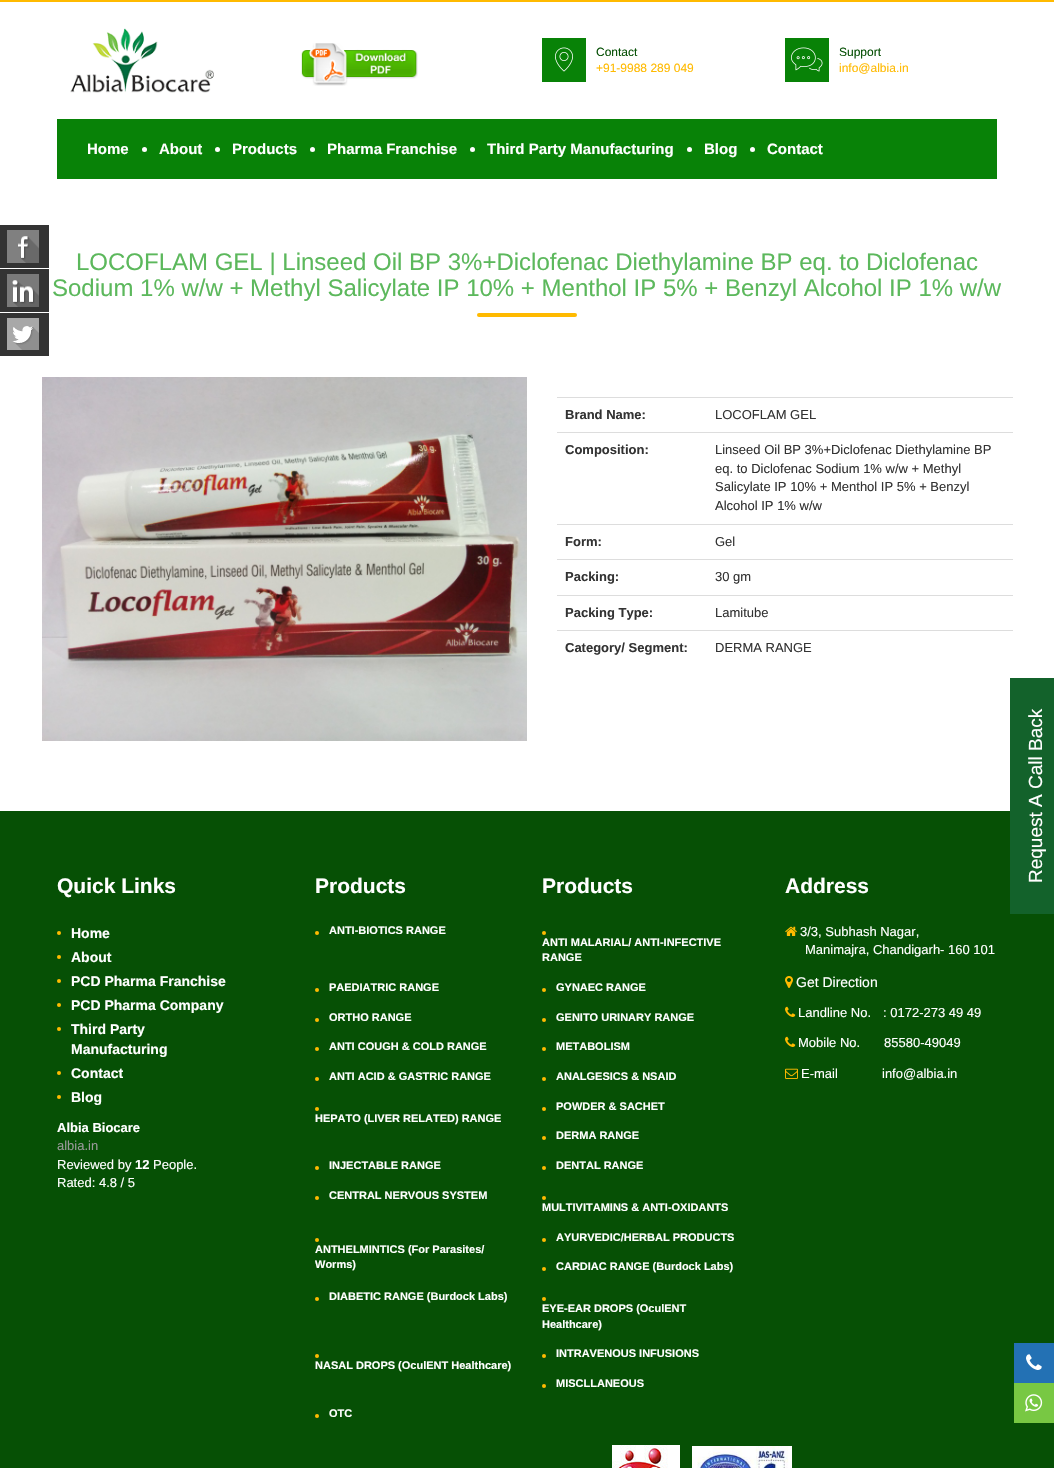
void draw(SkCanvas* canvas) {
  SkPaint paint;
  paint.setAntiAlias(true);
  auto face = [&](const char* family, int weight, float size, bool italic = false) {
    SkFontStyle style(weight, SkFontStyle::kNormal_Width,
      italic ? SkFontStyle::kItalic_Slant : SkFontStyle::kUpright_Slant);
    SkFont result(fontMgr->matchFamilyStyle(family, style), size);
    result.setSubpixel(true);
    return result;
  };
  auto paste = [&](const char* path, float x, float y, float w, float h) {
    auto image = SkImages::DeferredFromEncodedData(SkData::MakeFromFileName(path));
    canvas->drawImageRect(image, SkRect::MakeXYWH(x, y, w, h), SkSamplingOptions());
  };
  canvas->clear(0xffffffff);
  paint.setColor(0xffffba00);
  canvas->drawRect(SkRect::MakeXYWH(0, 0, 1054, 2), paint);
  paste("img/1.png", 70, 28, 144, 65);
  paste("img/2.png", 301, 43, 117, 43);
  paint.setColor(0xff088207);
  canvas->drawRect(SkRect::MakeXYWH(542, 38, 44, 44), paint);
  paste("img/3.png", 555, 47, 18, 25);
  canvas->drawRect(SkRect::MakeXYWH(785, 38, 44, 44), paint);
  paste("img/4.png", 791, 47, 32, 25);
  canvas->drawRect(SkRect::MakeXYWH(57, 119, 940, 60), paint);
  paint.setColor(0xffffffff);
  canvas->drawCircle(144.5f, 149.5f, 2.5f, paint);
  canvas->drawCircle(217.5f, 149.5f, 2.5f, paint);
  canvas->drawCircle(312.5f, 149.5f, 2.5f, paint);
  canvas->drawCircle(472.5f, 149.5f, 2.5f, paint);
  canvas->drawCircle(689.5f, 149.5f, 2.5f, paint);
  canvas->drawCircle(752.5f, 149.5f, 2.5f, paint);
  paint.setColor(0xff333333);
  canvas->drawRect(SkRect::MakeXYWH(0, 225, 49, 43), paint);
  paste("img/5.png", 7, 230, 32, 33);
  canvas->drawRect(SkRect::MakeXYWH(0, 269, 49, 43), paint);
  paste("img/6.png", 7, 274, 32, 33);
  canvas->drawRect(SkRect::MakeXYWH(0, 313, 49, 43), paint);
  paste("img/7.png", 7, 318, 32, 32);
  paint.setColor(0xff065005);
  canvas->drawRect(SkRect::MakeXYWH(0, 811, 1054, 657), paint);
  paint.setColor(0xff13622b);
  canvas->drawRect(SkRect::MakeXYWH(1010, 678, 44, 236), paint);
  paint.setColor(0xffffba00);
  canvas->drawRoundRect(SkRect::MakeXYWH(477, 313, 100, 4), 2, 2, paint);
  paste("img/8.png", 42, 377, 485, 364);
  {
    const struct { float x, y, w, h; SkColor color; } items[] = {
      {557, 397, 456, 1, 0xffdddddd},
      {557, 432, 456, 1, 0xffdddddd},
      {557, 524, 456, 1, 0xffdddddd},
      {557, 559, 456, 1, 0xffdddddd},
      {557, 595, 456, 1, 0xffdddddd},
      {557, 630, 456, 1, 0xffdddddd},
    };
    for (auto [x, y, w, h, color] : items) {
      paint.setColor(color);
      canvas->drawRect(SkRect::MakeXYWH(x, y, w, h), paint);
    }
  }
  paint.setColor(0xffffba00);
  canvas->drawCircle(59, 933, 2, paint);
  canvas->drawCircle(59, 957, 2, paint);
  canvas->drawCircle(59, 981, 2, paint);
  canvas->drawCircle(59, 1005, 2, paint);
  canvas->drawCircle(59, 1029, 2, paint);
  canvas->drawCircle(59, 1073, 2, paint);
  canvas->drawCircle(59, 1097, 2, paint);
  canvas->drawCircle(317, 933, 2, paint);
  canvas->drawCircle(544, 933, 2, paint);
  canvas->drawCircle(317, 990, 2, paint);
  canvas->drawCircle(544, 990, 2, paint);
  canvas->drawCircle(317, 1020, 2, paint);
  canvas->drawCircle(544, 1020, 2, paint);
  canvas->drawCircle(317, 1049, 2, paint);
  canvas->drawCircle(544, 1049, 2, paint);
  canvas->drawCircle(317, 1079, 2, paint);
  canvas->drawCircle(544, 1079, 2, paint);
  canvas->drawCircle(544, 1109, 2, paint);
  canvas->drawCircle(317, 1109, 2, paint);
  canvas->drawCircle(544, 1138, 2, paint);
  canvas->drawCircle(317, 1168, 2, paint);
  canvas->drawCircle(544, 1168, 2, paint);
  canvas->drawCircle(317, 1198, 2, paint);
  canvas->drawCircle(544, 1198, 2, paint);
  canvas->drawCircle(544, 1240, 2, paint);
  canvas->drawCircle(317, 1240, 2, paint);
  canvas->drawCircle(544, 1269, 2, paint);
  canvas->drawCircle(317, 1299, 2, paint);
  canvas->drawCircle(544, 1299, 2, paint);
  canvas->drawCircle(544, 1356, 2, paint);
  canvas->drawCircle(317, 1356, 2, paint);
  canvas->drawCircle(544, 1386, 2, paint);
  canvas->drawCircle(317, 1416, 2, paint);
  paste("img/9.png", 785, 926, 12, 10);
  paste("img/10.png", 785, 976, 8, 12);
  paste("img/11.png", 785, 1006, 11, 11);
  paste("img/11.png", 785, 1036, 11, 11);
  paste("img/12.png", 785, 1068, 13, 11);
  paste("img/13.png", 612, 1445, 68, 23);
  paste("img/14.png", 692, 1446, 100, 22);
  paint.setColor(0xff2371b4);
  canvas->drawRect(SkRect::MakeXYWH(1014, 1343, 40, 40), paint);
  paste("img/15.png", 1026, 1354, 16, 16);
  paint.setColor(0xff78c843);
  canvas->drawRect(SkRect::MakeXYWH(1014, 1383, 40, 40), paint);
  paste("img/16.png", 1025, 1394, 18, 18);
  auto f0 = face("Liberation Sans", 400, 12);
  paint.setColor(0xff065005);
  canvas->drawString("Contact", 596, 56, f0, paint);
  paint.setColor(0xffffba00);
  canvas->drawString("+91-9988 289 049", 596, 72, f0, paint);
  paint.setColor(0xff065005);
  canvas->drawString("Support", 839, 56, f0, paint);
  paint.setColor(0xffffba00);
  canvas->drawString("info@albia.in", 839, 72, f0, paint);
  auto f1 = face("Liberation Sans", 700, 15);
  paint.setColor(0xffffffff);
  {
    const struct { const char* s; float x, y; } items[] = {
      {"Home", 87, 154},
      {"About", 159, 154},
      {"Products", 232, 154},
      {"Pharma Franchise", 327, 154},
      {"Third Party Manufacturing", 487, 154},
      {"Blog", 704, 154},
      {"Contact", 767, 154},
    };
    for (auto [s, x, y] : items) {
      canvas->drawString(s, x, y, f1, paint);
    }
  }
  auto f2 = face("Liberation Sans", 400, 19);
  canvas->save();
  canvas->rotate(-90, 1042, 883);
  canvas->drawString("Request A Call Back", 1042, 883, f2, paint);
  canvas->restore();
  auto f3 = face("Liberation Sans", 400, 24);
  paint.setColor(0xff5cb85c);
  canvas->drawString("LOCOFLAM GEL | Linseed Oil BP 3%+Diclofenac Diethylamine BP eq. to Diclofenac", 76, 270, f3, paint);
  canvas->drawString("Sodium 1% w/w + Methyl Salicylate IP 10% + Menthol IP 5% + Benzyl Alcohol IP 1% w/w", 52, 296, f3, paint);
  auto f4 = face("Liberation Sans", 700, 13);
  paint.setColor(0xff333333);
  canvas->drawString("Brand Name:", 565, 419, f4, paint);
  auto f5 = face("Liberation Sans", 400, 13);
  canvas->drawString("LOCOFLAM GEL", 715, 419, f5, paint);
  canvas->drawString("Composition:", 565, 454, f4, paint);
  {
    const struct { const char* s; float x, y; } items[] = {
      {"Linseed Oil BP 3%+Diclofenac Diethylamine BP", 715, 454},
      {"eq. to Diclofenac Sodium 1% w/w + Methyl", 715, 473},
      {"Salicylate IP 10% + Menthol IP 5% + Benzyl", 715, 491},
      {"Alcohol IP 1% w/w", 715, 510},
    };
    for (auto [s, x, y] : items) {
      canvas->drawString(s, x, y, f5, paint);
    }
  }
  canvas->drawString("Form:", 565, 546, f4, paint);
  canvas->drawString("Gel", 715, 546, f5, paint);
  canvas->drawString("Packing:", 565, 581, f4, paint);
  canvas->drawString("30 gm", 715, 581, f5, paint);
  canvas->drawString("Packing Type:", 565, 617, f4, paint);
  canvas->drawString("Lamitube", 715, 617, f5, paint);
  canvas->drawString("Category/ Segment:", 565, 652, f4, paint);
  canvas->drawString("DERMA RANGE", 715, 652, f5, paint);
  auto f6 = face("Liberation Sans", 700, 21);
  paint.setColor(0xffffffff);
  canvas->drawString("Quick Links", 57, 893, f6, paint);
  auto f7 = face("Liberation Sans", 700, 14);
  {
    const struct { const char* s; float x, y; } items[] = {
      {"Home", 71, 938},
      {"About", 71, 962},
      {"PCD Pharma Franchise", 71, 986},
      {"PCD Pharma Company", 71, 1010},
      {"Third Party", 71, 1034},
      {"Manufacturing", 71, 1054},
      {"Contact", 71, 1078},
      {"Blog", 71, 1102},
    };
    for (auto [s, x, y] : items) {
      canvas->drawString(s, x, y, f7, paint);
    }
  }
  canvas->drawString("Albia Biocare", 57, 1132, f4, paint);
  paint.setColor(0xff999999);
  canvas->drawString("albia.in", 57, 1150, f5, paint);
  paint.setColor(0xffffffff);
  canvas->drawString("Reviewed by", 57, 1169, f5, paint);
  canvas->drawString("12", 135, 1169, f4, paint);
  canvas->drawString("People.", 153, 1169, f5, paint);
  canvas->drawString("Rated: 4.8 / 5", 57, 1187, f5, paint);
  canvas->drawString("Products", 315, 893, f6, paint);
  canvas->drawString("Products", 542, 893, f6, paint);
  auto f8 = face("Liberation Sans", 700, 11);
  {
    const struct { const char* s; float x, y; } items[] = {
      {"ANTI-BIOTICS RANGE", 329, 934},
      {"ANTI MALARIAL/ ANTI-INFECTIVE", 542, 946},
      {"RANGE", 542, 961},
      {"PAEDIATRIC RANGE", 329, 991},
      {"GYNAEC RANGE", 556, 991},
      {"ORTHO RANGE", 329, 1021},
      {"GENITO URINARY RANGE", 556, 1021},
      {"ANTI COUGH & COLD RANGE", 329, 1050},
      {"METABOLISM", 556, 1050},
      {"ANTI ACID & GASTRIC RANGE", 329, 1080},
      {"ANALGESICS & NSAID", 556, 1080},
      {"POWDER & SACHET", 556, 1110},
      {"HEPATO (LIVER RELATED) RANGE", 315, 1122},
      {"DERMA RANGE", 556, 1139},
      {"INJECTABLE RANGE", 329, 1169},
      {"DENTAL RANGE", 556, 1169},
      {"CENTRAL NERVOUS SYSTEM", 329, 1199},
      {"MULTIVITAMINS & ANTI-OXIDANTS", 542, 1211},
      {"AYURVEDIC/HERBAL PRODUCTS", 556, 1241},
      {"ANTHELMINTICS (For Parasites/", 315, 1253},
      {"Worms)", 315, 1268},
      {"CARDIAC RANGE (Burdock Labs)", 556, 1270},
      {"DIABETIC RANGE (Burdock Labs)", 329, 1300},
      {"EYE-EAR DROPS (OculENT", 542, 1312},
      {"Healthcare)", 542, 1328},
      {"INTRAVENOUS INFUSIONS", 556, 1357},
      {"NASAL DROPS (OculENT Healthcare)", 315, 1369},
      {"MISCLLANEOUS", 556, 1387},
      {"OTC", 329, 1417},
    };
    for (auto [s, x, y] : items) {
      canvas->drawString(s, x, y, f8, paint);
    }
  }
  canvas->drawString("Address", 785, 893, f6, paint);
  canvas->drawString("3/3, Subhash Nagar,", 800, 936, f5, paint);
  canvas->drawString("Manimajra, Chandigarh- 160 101", 805, 954, f5, paint);
  auto f9 = face("Liberation Sans", 400, 14);
  canvas->drawString("Get Direction", 796, 987, f9, paint);
  {
    const struct { const char* s; float x, y; } items[] = {
      {"Landline No.", 798, 1017},
      {": 0172-273 49 49", 883, 1017},
      {"Mobile No.", 798, 1047},
      {"85580-49049", 884, 1047},
      {"E-mail", 801, 1078},
      {"info@albia.in", 882, 1078},
    };
    for (auto [s, x, y] : items) {
      canvas->drawString(s, x, y, f5, paint);
    }
  }
}
